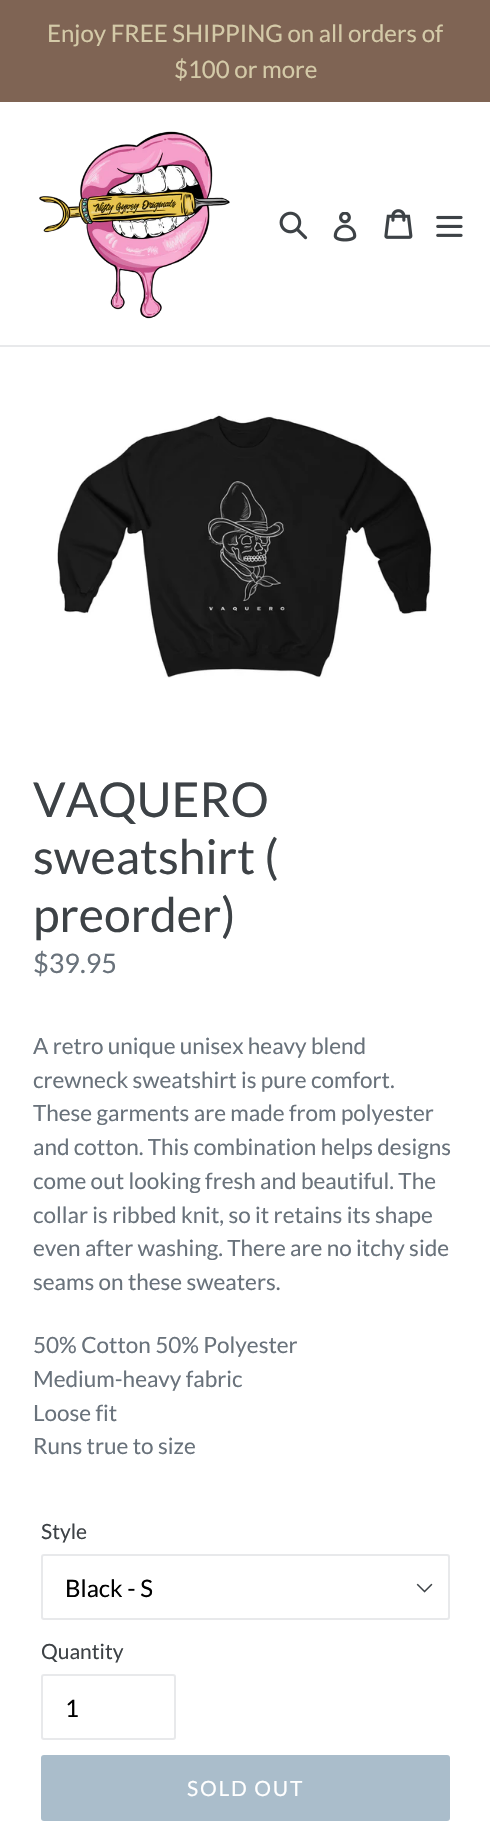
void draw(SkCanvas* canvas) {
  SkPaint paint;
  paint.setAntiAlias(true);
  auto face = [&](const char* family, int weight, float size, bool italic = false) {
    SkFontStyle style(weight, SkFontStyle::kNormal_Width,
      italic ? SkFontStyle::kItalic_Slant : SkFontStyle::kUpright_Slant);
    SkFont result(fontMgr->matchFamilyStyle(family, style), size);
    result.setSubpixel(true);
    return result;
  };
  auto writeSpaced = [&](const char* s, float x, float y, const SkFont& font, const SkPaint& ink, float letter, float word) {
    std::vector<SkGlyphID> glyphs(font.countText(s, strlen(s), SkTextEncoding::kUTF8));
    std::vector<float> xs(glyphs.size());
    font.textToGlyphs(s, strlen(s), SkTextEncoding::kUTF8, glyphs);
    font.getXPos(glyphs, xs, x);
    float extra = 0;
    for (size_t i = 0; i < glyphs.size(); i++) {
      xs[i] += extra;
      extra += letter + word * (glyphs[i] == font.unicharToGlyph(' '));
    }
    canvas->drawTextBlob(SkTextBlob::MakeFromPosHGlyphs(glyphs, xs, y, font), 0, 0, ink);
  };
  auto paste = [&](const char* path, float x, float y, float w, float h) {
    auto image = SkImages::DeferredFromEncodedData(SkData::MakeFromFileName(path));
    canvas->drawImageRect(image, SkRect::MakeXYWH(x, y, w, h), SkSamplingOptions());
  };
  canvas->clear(0xffffffff);
  paint.setColor(0xff7f6454);
  canvas->drawRect(SkRect::MakeXYWH(0, 0, 490, 102), paint);
  paint.setColor(0xffe8e9eb);
  canvas->drawRect(SkRect::MakeXYWH(0, 345, 490, 2), paint);
  paste("img/1.png", 39, 131, 191, 188);
  paste("img/2.png", 279, 211, 29, 29);
  paste("img/3.png", 333, 212, 24, 30);
  paste("img/4.png", 384, 209, 29, 30);
  paste("img/5.png", 436, 215, 27, 22);
  paste("img/6.png", 57, 413, 376, 265);
  paste("img/7.png", 416, 1583, 17, 10);
  paint.setStroke(true);
  paint.setStrokeWidth(2);
  canvas->drawRoundRect(SkRect::MakeXYWH(42, 1555, 407, 64), 2, 2, paint);
  canvas->drawRoundRect(SkRect::MakeXYWH(42, 1675, 133, 64), 2, 2, paint);
  paint.setStroke(false);
  paint.setColor(0xffaabdcb);
  canvas->drawRoundRect(SkRect::MakeXYWH(41, 1755, 409, 66), 3, 3, paint);
  auto f0 = face("Lato", 400, 24);
  paint.setColor(0xffd4caa8);
  canvas->drawString("Enjoy FREE SHIPPING on all orders of", 47, 42, f0, paint);
  canvas->drawString("$100 or more", 174, 78, f0, paint);
  auto f1 = face("Lato", 400, 48);
  paint.setColor(0xff3d4246);
  {
    const struct { const char* s; float x, y; } items[] = {
      {"VAQUERO", 33, 817},
      {"sweatshirt (", 33, 874},
      {"preorder)", 33, 932},
    };
    for (auto [s, x, y] : items) {
      canvas->drawString(s, x, y, f1, paint);
    }
  }
  auto f2 = face("Lato", 400, 27);
  paint.setColor(0xff69727b);
  canvas->drawString("$39.95", 33, 973, f2, paint);
  auto f3 = face("Lato", 400, 22.5f);
  {
    const struct { const char* s; float x, y; } items[] = {
      {"A retro unique unisex heavy blend", 33, 1054},
      {"crewneck sweatshirt is pure comfort.", 33, 1088},
      {"These garments are made from polyester", 33, 1121},
      {"and cotton. This combination helps designs", 33, 1155},
      {"come out looking fresh and beautiful. The", 33, 1189},
      {"collar is ribbed knit, so it retains its shape", 33, 1223},
      {"even after washing. There are no itchy side", 33, 1256},
      {"seams on these sweaters.", 33, 1290},
      {"50% Cotton 50% Polyester", 33, 1353},
      {"Medium-heavy fabric", 33, 1387},
      {"Loose fit", 33, 1421},
      {"Runs true to size", 33, 1454},
    };
    for (auto [s, x, y] : items) {
      canvas->drawString(s, x, y, f3, paint);
    }
  }
  auto f4 = face("Lato", 400, 21);
  paint.setColor(0xff3d4246);
  canvas->drawString("Style", 41, 1539, f4, paint);
  paint.setColor(0xff000000);
  canvas->drawString("Black - S", 65, 1597, f0, paint);
  paint.setColor(0xff3d4246);
  canvas->drawString("Quantity", 41, 1659, f4, paint);
  paint.setColor(0xff000000);
  canvas->drawString("1", 65, 1717, f0, paint);
  paint.setColor(0xffffffff);
  writeSpaced("SOLD OUT", 187, 1796, f4, paint, 1.75f, 0);
}
